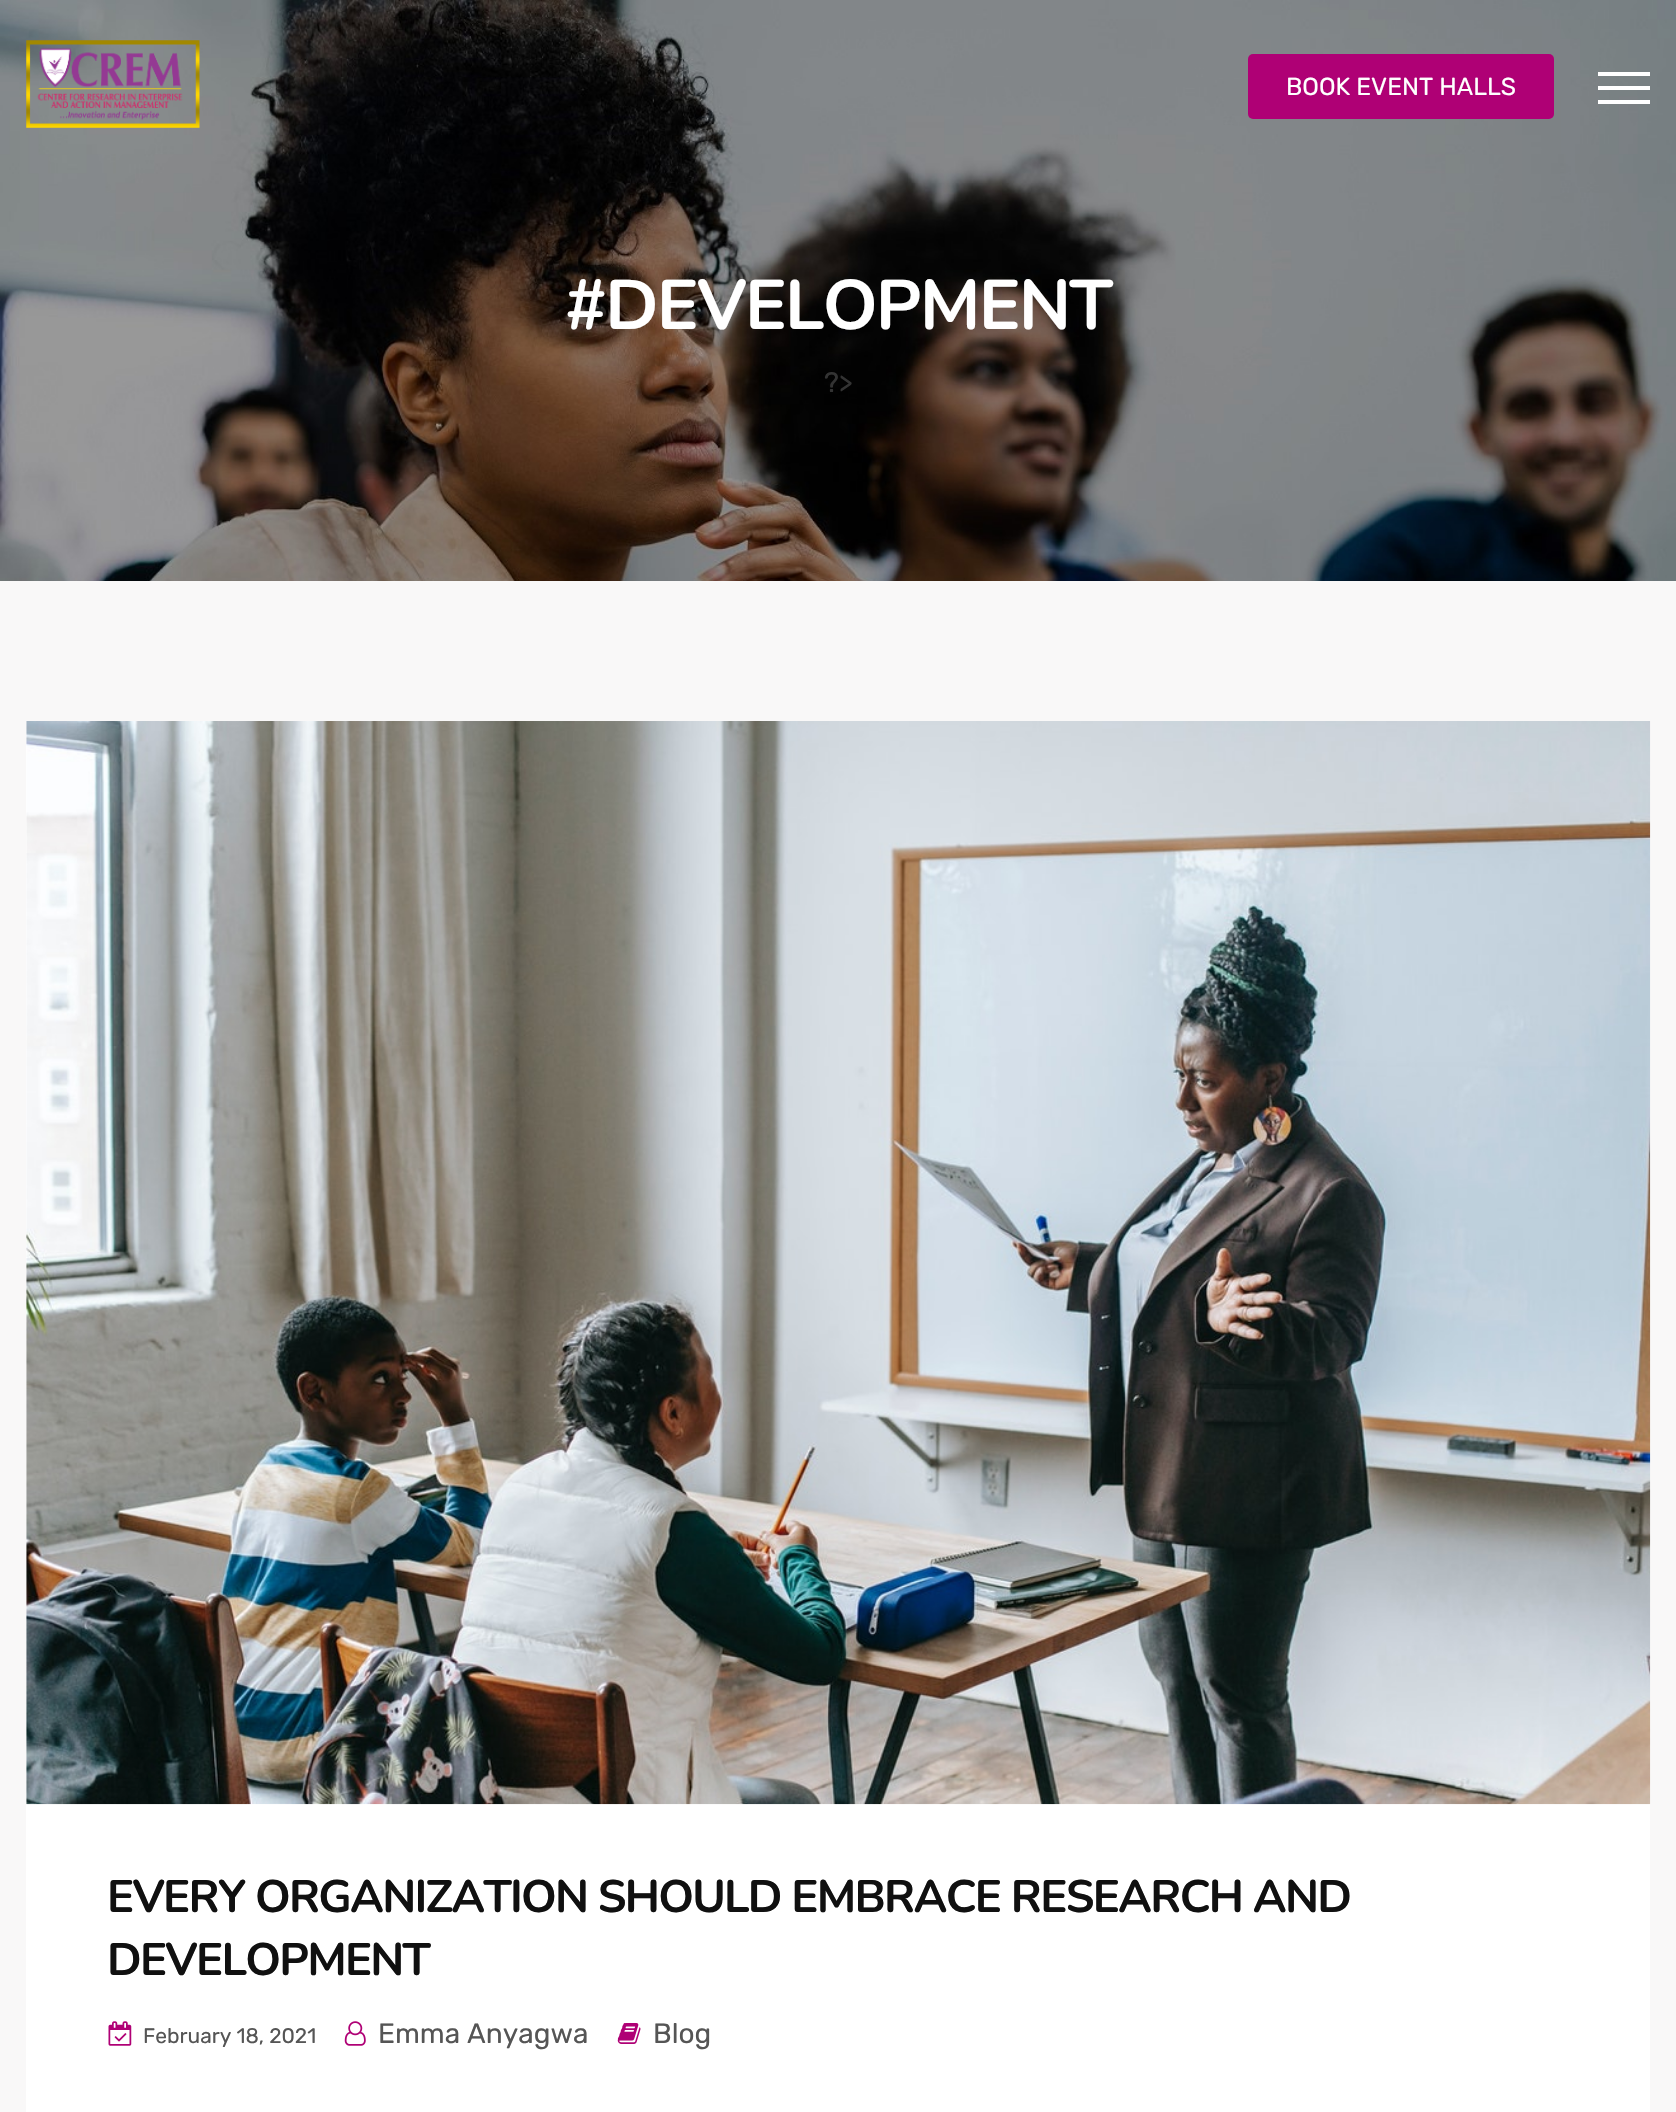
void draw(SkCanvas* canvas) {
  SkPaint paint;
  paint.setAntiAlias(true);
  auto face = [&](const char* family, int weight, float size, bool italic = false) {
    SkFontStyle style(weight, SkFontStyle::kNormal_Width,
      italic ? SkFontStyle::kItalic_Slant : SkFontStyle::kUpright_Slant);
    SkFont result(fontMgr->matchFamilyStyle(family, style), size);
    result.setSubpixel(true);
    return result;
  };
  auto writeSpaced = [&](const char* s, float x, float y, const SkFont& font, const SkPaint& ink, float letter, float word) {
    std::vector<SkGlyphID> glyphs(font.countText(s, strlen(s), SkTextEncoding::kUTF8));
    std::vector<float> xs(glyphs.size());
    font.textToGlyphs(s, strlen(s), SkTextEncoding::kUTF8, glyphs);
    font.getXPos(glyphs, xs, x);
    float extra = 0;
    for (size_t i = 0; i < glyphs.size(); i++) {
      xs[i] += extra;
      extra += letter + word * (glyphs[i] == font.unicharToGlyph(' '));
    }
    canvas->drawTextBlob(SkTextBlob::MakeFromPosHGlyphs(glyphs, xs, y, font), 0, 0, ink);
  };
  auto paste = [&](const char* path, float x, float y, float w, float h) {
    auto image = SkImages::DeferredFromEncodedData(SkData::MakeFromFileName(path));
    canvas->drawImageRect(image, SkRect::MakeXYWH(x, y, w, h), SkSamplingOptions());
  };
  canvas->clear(0xfff9f8f8);
  paste("img/2.png", 0, 0, 1676, 581);
  paste("img/1.png", 26, 40, 174, 88);
  paint.setColor(0xffaf0075);
  canvas->drawRoundRect(SkRect::MakeXYWH(1248, 54, 306, 65), 5, 5, paint);
  {
    const struct { float x, y, w, h; SkColor color; } items[] = {
      {1598, 72, 52, 4, 0xffffffff},
      {1598, 86, 52, 4, 0xffffffff},
      {1598, 100, 52, 4, 0xffffffff},
      {26, 721, 1624, 1391, 0xffffffff},
    };
    for (auto [x, y, w, h, color] : items) {
      paint.setColor(color);
      canvas->drawRect(SkRect::MakeXYWH(x, y, w, h), paint);
    }
  }
  paste("img/3.png", 26, 721, 1625, 1084);
  paste("img/4.png", 108, 2021, 24, 25);
  paste("img/5.png", 344, 2021, 22, 25);
  paste("img/6.png", 617, 2023, 24, 21);
  auto f0 = face("Rubik", 400, 24.5f);
  canvas->drawString("BOOK EVENT HALLS", 1286, 95, f0, paint);
  auto f1 = face("Nunito", 700, 70);
  writeSpaced("#DEVELOPMENT", 565, 329, f1, paint, -1.75f, 0);
  auto f2 = face("Rubik", 400, 28);
  paint.setColor(0xff333333);
  canvas->drawString("?>", 824, 392, f2, paint);
  auto f3 = face("Nunito", 700, 45.5f);
  paint.setColor(0xff101010);
  writeSpaced("EVERY ORGANIZATION SHOULD EMBRACE RESEARCH AND", 107, 1912, f3, paint, -1.75f, 0);
  writeSpaced("DEVELOPMENT", 107, 1975, f3, paint, -1.75f, 0);
  auto f4 = face("Rubik", 400, 21);
  paint.setColor(0xff555555);
  canvas->drawString("February 18, 2021", 143, 2043, f4, paint);
  canvas->drawString("Emma Anyagwa", 378, 2043, f2, paint);
  canvas->drawString("Blog", 653, 2043, f2, paint);
}
